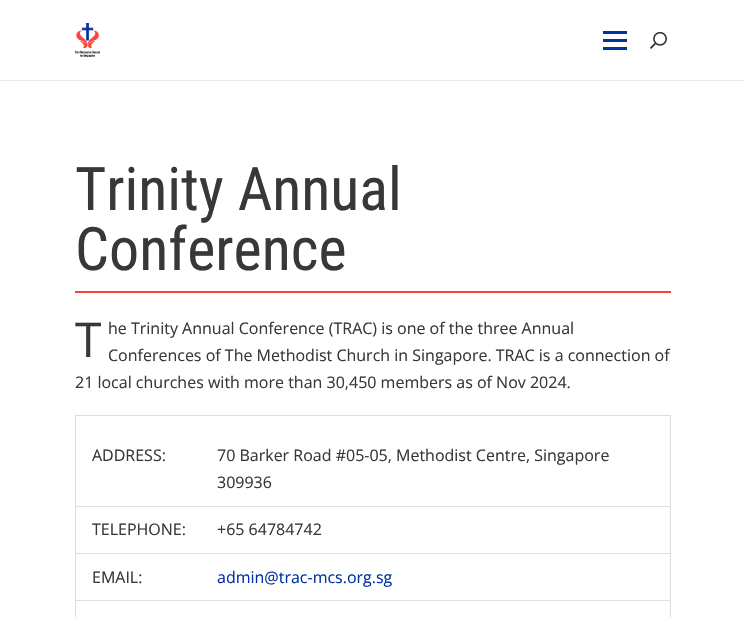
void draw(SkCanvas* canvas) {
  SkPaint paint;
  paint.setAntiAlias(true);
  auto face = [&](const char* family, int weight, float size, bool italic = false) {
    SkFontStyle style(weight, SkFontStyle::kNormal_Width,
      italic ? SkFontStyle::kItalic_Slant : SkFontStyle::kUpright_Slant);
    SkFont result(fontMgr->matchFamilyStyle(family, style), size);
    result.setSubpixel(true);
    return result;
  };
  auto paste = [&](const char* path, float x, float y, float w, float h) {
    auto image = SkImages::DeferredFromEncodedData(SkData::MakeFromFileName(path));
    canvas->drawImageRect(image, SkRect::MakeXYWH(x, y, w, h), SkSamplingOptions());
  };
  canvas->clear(0xffffffff);
  paint.setColor(0xffebebeb);
  canvas->drawRect(SkRect::MakeXYWH(0, 80, 745, 1), paint);
  paste("img/1.png", 75, 23, 25, 34);
  {
    const struct { float x, y, w, h; SkColor color; } items[] = {
      {603, 39, 24, 3, 0xff0033a0},
      {603, 31, 24, 3, 0xff0033a0},
      {603, 47, 24, 3, 0xff0033a0},
    };
    for (auto [x, y, w, h, color] : items) {
      paint.setColor(color);
      canvas->drawRect(SkRect::MakeXYWH(x, y, w, h), paint);
    }
  }
  paste("img/2.png", 650, 31, 17, 18);
  {
    const struct { float x, y, w, h; SkColor color; } items[] = {
      {75, 291, 596, 2, 0xfff9423a},
      {75, 415, 596, 1, 0xffdddddd},
      {670, 415, 1, 202, 0xffdddddd},
      {75, 415, 1, 202, 0xffdddddd},
      {75, 506, 595, 1, 0xffdce0e3},
      {75, 553, 595, 1, 0xffdce0e3},
      {75, 600, 595, 1, 0xffdce0e3},
    };
    for (auto [x, y, w, h, color] : items) {
      paint.setColor(color);
      canvas->drawRect(SkRect::MakeXYWH(x, y, w, h), paint);
    }
  }
  auto f0 = face("Roboto Condensed", 400, 60);
  paint.setColor(0xff383838);
  canvas->drawString("Trinity Annual", 75, 210, f0, paint);
  canvas->drawString("Conference", 75, 270, f0, paint);
  auto f1 = face("Open Sans", 400, 48);
  canvas->drawString("T", 75, 357, f1, paint);
  auto f2 = face("Open Sans", 400, 16);
  {
    const struct { const char* s; float x, y; } items[] = {
      {"he Trinity Annual Conference (TRAC) is one of the three Annual", 108, 334},
      {"Conferences of The Methodist Church in Singapore. TRAC is a connection of", 108, 361},
      {"21 local churches with more than 30,450 members as of Nov 2024.", 75, 388},
      {"ADDRESS:", 92, 461},
      {"70 Barker Road #05-05, Methodist Centre, Singapore", 217, 461},
      {"309936", 217, 488},
      {"TELEPHONE:", 92, 535},
      {"+65 64784742", 217, 535},
      {"EMAIL:", 92, 583},
    };
    for (auto [s, x, y] : items) {
      canvas->drawString(s, x, y, f2, paint);
    }
  }
  paint.setColor(0xff0032a1);
  canvas->drawString("admin@trac-mcs.org.sg", 217, 583, f2, paint);
}
